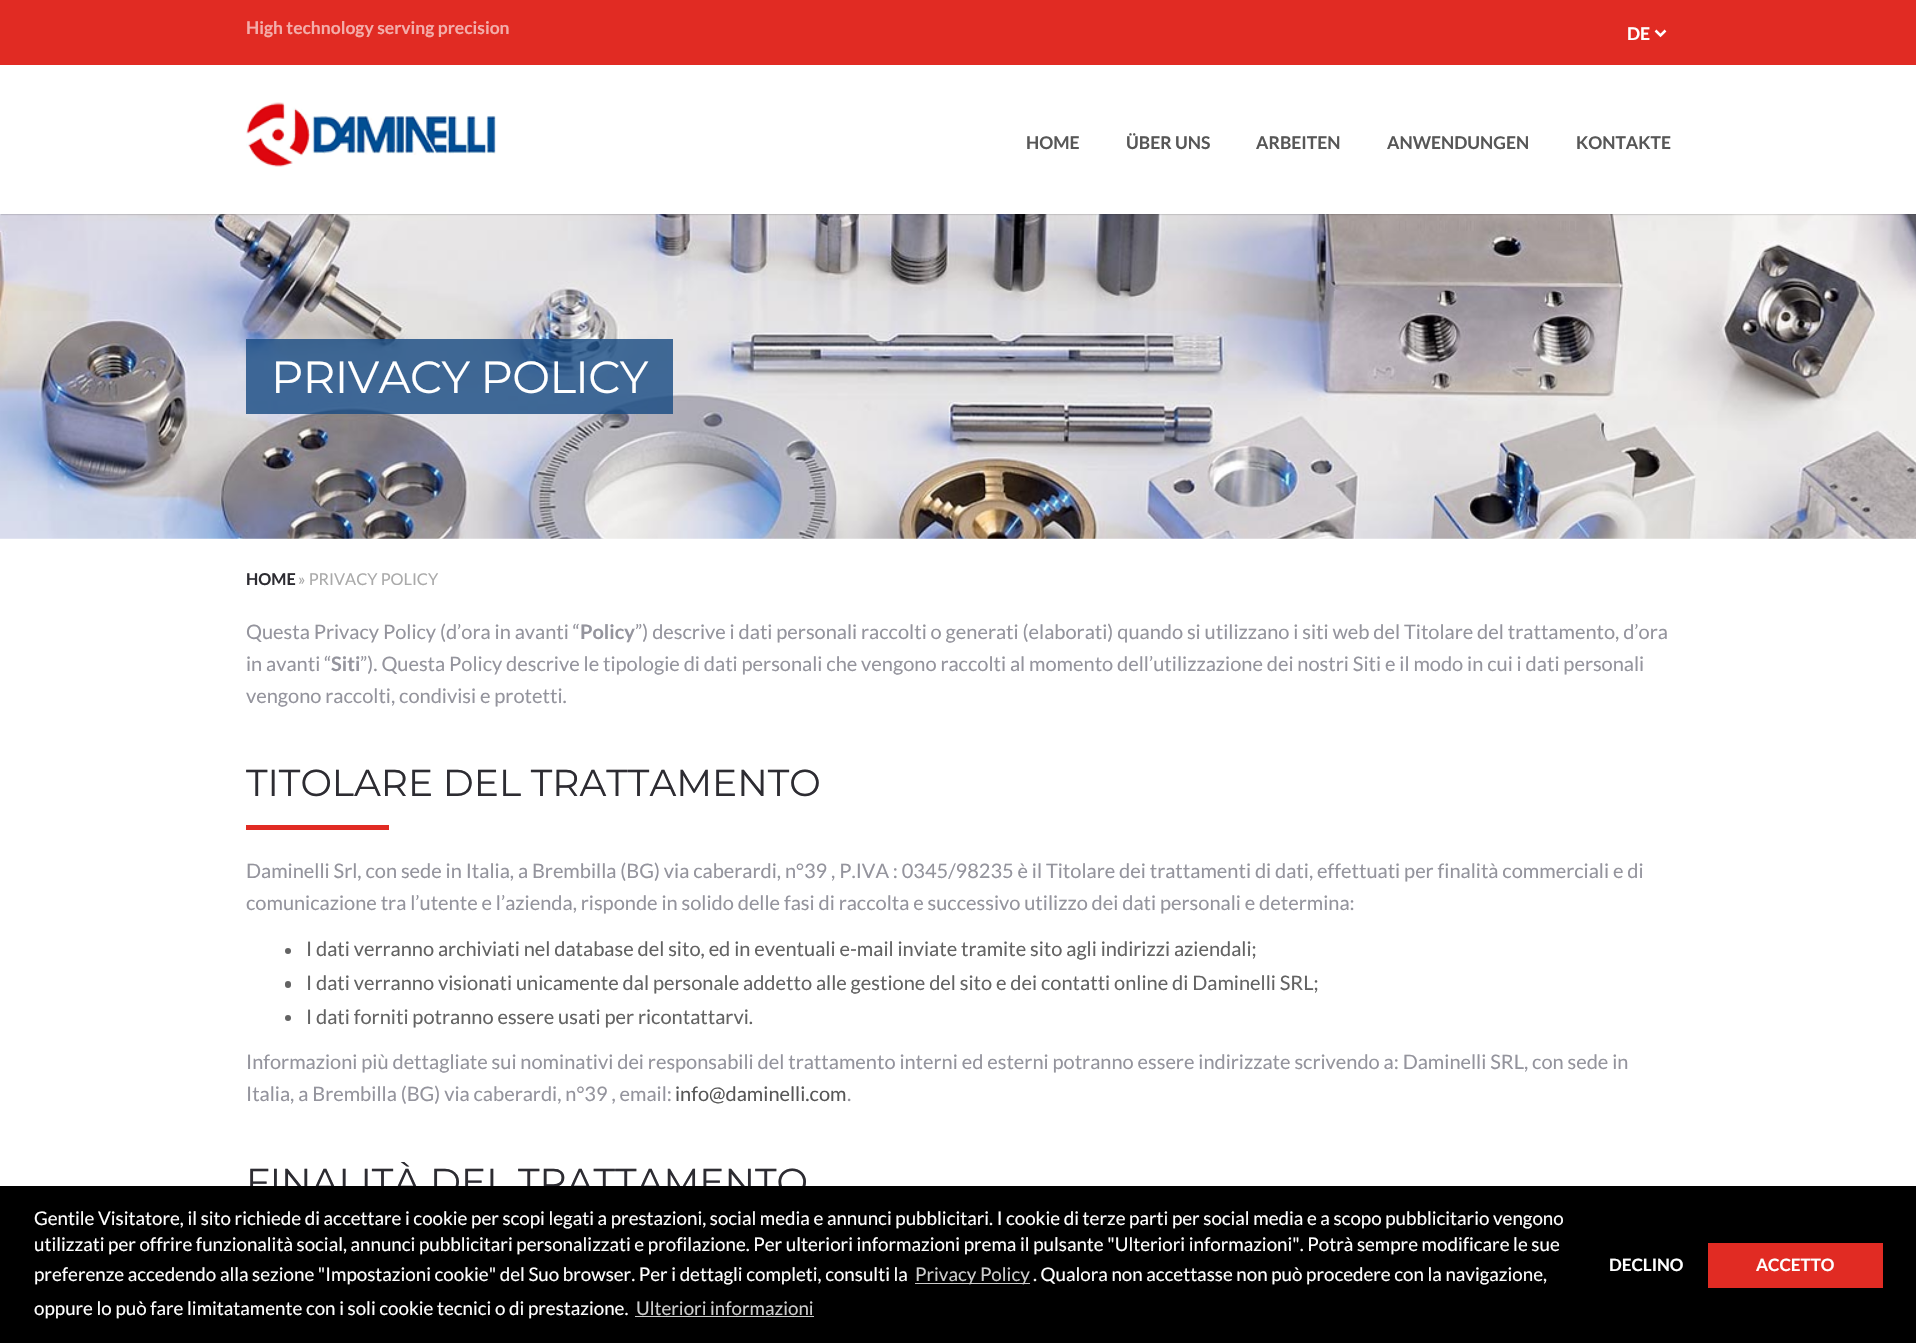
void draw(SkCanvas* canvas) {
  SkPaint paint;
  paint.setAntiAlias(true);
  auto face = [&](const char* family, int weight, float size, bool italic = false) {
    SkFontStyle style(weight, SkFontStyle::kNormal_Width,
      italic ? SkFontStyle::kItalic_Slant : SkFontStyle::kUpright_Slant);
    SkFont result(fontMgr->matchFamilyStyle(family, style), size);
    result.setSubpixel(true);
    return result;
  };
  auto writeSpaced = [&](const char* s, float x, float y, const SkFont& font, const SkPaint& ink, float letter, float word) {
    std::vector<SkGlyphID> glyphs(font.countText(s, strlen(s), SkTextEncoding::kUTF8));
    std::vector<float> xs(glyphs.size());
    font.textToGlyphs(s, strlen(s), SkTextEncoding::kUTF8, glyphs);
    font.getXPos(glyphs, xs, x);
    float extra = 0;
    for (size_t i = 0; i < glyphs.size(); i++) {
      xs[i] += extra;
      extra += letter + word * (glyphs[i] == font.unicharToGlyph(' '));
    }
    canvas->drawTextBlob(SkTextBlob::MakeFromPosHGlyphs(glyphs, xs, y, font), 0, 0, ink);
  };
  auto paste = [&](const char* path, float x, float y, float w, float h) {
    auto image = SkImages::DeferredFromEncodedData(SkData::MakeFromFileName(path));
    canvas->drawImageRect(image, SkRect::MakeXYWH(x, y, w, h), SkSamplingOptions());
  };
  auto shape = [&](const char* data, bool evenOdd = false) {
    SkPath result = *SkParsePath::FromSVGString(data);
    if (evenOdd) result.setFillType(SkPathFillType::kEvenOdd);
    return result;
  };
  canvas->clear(0xffffffff);
  paste("img/3.png", 0, 214, 1916, 325);
  paint.setColor(0x1f000000);
  paint.setMaskFilter(SkMaskFilter::MakeBlur(kNormal_SkBlurStyle, 0.5f));
  canvas->drawRect(SkRect::MakeXYWH(1, 1, 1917, 214), paint);
  paint.setMaskFilter(nullptr);
  paint.setColor(0xffe12b23);
  canvas->drawRect(SkRect::MakeXYWH(0, 0, 1916, 65), paint);
  paint.setStroke(true);
  paint.setStrokeWidth(2.5f);
  paint.setColor(0xffffffff);
  canvas->drawPath(shape("M1655.5 30.5L1660.5 35.5L1665.5 30.5"), paint);
  paint.setStroke(false);
  canvas->drawRect(SkRect::MakeXYWH(0, 65, 1916, 149), paint);
  paste("img/1.png", 246, 102, 65, 65);
  paste("img/2.png", 312, 115, 184, 40);
  paint.setColor(0xcc154881);
  canvas->drawRect(SkRect::MakeXYWH(246, 339, 427, 75), paint);
  paint.setColor(0xffe12b23);
  canvas->drawRect(SkRect::MakeXYWH(246, 825, 143, 5), paint);
  paint.setColor(0xff636363);
  canvas->drawCircle(288, 951, 3, paint);
  canvas->drawRoundRect(SkRect::MakeXYWH(285, 981, 6, 7), 3, 3, paint);
  canvas->drawCircle(288, 1018, 3, paint);
  auto f0 = face("Lato", 700, 17.5f);
  paint.setColor(0xfff3adaa);
  canvas->drawString("High technology serving precision", 246, 34, f0, paint);
  paint.setColor(0xffffffff);
  canvas->drawString("DE", 1627, 40, f0, paint);
  paint.setColor(0xff575757);
  {
    const struct { const char* s; float x, y; } items[] = {
      {"HOME", 1026, 149},
      {"ÜBER UNS", 1126, 149},
      {"ARBEITEN", 1256, 149},
      {"ANWENDUNGEN", 1387, 149},
      {"KONTAKTE", 1576, 149},
    };
    for (auto [s, x, y] : items) {
      canvas->drawString(s, x, y, f0, paint);
    }
  }
  auto f1 = face("Montserrat", 400, 45);
  paint.setColor(0xffffffff);
  writeSpaced("PRIVACY POLICY", 271, 393, f1, paint, -0.6f, 0);
  auto f2 = face("Lato", 700, 16.25f);
  paint.setColor(0xff2d2c32);
  canvas->drawString("HOME", 246, 585, f2, paint);
  auto f3 = face("Lato", 400, 16.25f);
  paint.setColor(0xffaaaaaa);
  canvas->drawString("» PRIVACY POLICY", 298, 585, f3, paint);
  auto f4 = face("Lato", 400, 20);
  paint.setColor(0xff94949d);
  canvas->drawString("Questa Privacy Policy (d’ora in avanti “", 246, 639, f4, paint);
  auto f5 = face("Lato", 700, 20);
  canvas->drawString("Policy", 580, 639, f5, paint);
  canvas->drawString("”) descrive i dati personali raccolti o generati (elaborati) quando si utilizzano i siti web del Titolare del trattamento, d’ora", 635, 639, f4, paint);
  canvas->drawString("in avanti “", 246, 671, f4, paint);
  canvas->drawString("Siti", 331, 671, f5, paint);
  canvas->drawString("”). Questa Policy descrive le tipologie di dati personali che vengono raccolti al momento dell’utilizzazione dei nostri Siti e il modo in cui i dati personali", 360, 671, f4, paint);
  canvas->drawString("vengono raccolti, condivisi e protetti.", 246, 703, f4, paint);
  auto f6 = face("Montserrat", 400, 37.5f);
  paint.setColor(0xff2d2c32);
  canvas->drawString("TITOLARE DEL TRATTAMENTO", 246, 796, f6, paint);
  paint.setColor(0xff94949d);
  canvas->drawString("Daminelli Srl, con sede in Italia, a Brembilla (BG) via caberardi, n°39 , P.IVA : 0345/98235 è il Titolare dei trattamenti di dati, effettuati per finalità commerciali e di", 246, 878, f4, paint);
  canvas->drawString("comunicazione tra l’utente e l’azienda, risponde in solido delle fasi di raccolta e successivo utilizzo dei dati personali e determina:", 246, 910, f4, paint);
  paint.setColor(0xff636363);
  {
    const struct { const char* s; float x, y; } items[] = {
      {"I dati verranno archiviati nel database del sito, ed in eventuali e-mail inviate tramite sito agli indirizzi aziendali;", 306, 956},
      {"I dati verranno visionati unicamente dal personale addetto alle gestione del sito e dei contatti online di Daminelli SRL;", 306, 990},
      {"I dati forniti potranno essere usati per ricontattarvi.", 306, 1024},
    };
    for (auto [s, x, y] : items) {
      canvas->drawString(s, x, y, f4, paint);
    }
  }
  paint.setColor(0xff94949d);
  canvas->drawString("Informazioni più dettagliate sui nominativi dei responsabili del trattamento interni ed esterni potranno essere indirizzate scrivendo a: Daminelli SRL, con sede in", 246, 1069, f4, paint);
  canvas->drawString("Italia, a Brembilla (BG) via caberardi, n°39 , email:", 246, 1101, f4, paint);
  paint.setColor(0xff575757);
  canvas->drawString("info@daminelli.com", 675, 1101, f4, paint);
  paint.setColor(0xff94949d);
  canvas->drawString(".", 847, 1101, f4, paint);
  paint.setColor(0xff2d2c32);
  canvas->drawString("FINALITÀ DEL TRATTAMENTO", 246, 1195, f6, paint);
  paint.setColor(0xff000000);
  canvas->drawRect(SkRect::MakeXYWH(0, 1186, 1916, 157), paint);
  auto f7 = face("Lato", 400, 18.75f);
  paint.setColor(0xffffffff);
  {
    const struct { const char* s; float x, y; } items[] = {
      {"Gentile Visitatore, il sito richiede di accettare i cookie per scopi legati a prestazioni, social media e annunci pubblicitari. I cookie di terze parti per social media e a scopo pubblicitario vengono", 34, 1225},
      {"utilizzati per offrire funzionalità social, annunci pubblicitari personalizzati e profilazione. Per ulteriori informazioni prema il pulsante \"Ulteriori informazioni\". Potrà sempre modificare le sue", 34, 1251},
      {"preferenze accedendo alla sezione \"Impostazioni cookie\" del Suo browser. Per i dettagli completi, consulti la", 34, 1281},
    };
    for (auto [s, x, y] : items) {
      canvas->drawString(s, x, y, f7, paint);
    }
  }
  paint.setColor(0xffcccccc);
  canvas->drawRect(SkRect::MakeXYWH(915, 1283, 115, 1), paint);
  canvas->drawString("Privacy Policy", 915, 1281, f7, paint);
  paint.setColor(0xffffffff);
  canvas->drawString(". Qualora non accettasse non può procedere con la navigazione,", 1033, 1281, f7, paint);
  canvas->drawString("oppure lo può fare limitatamente con i soli cookie tecnici o di prestazione.", 34, 1315, f7, paint);
  paint.setColor(0xffcccccc);
  canvas->drawString("Ulteriori informazioni", 636, 1315, f7, paint);
  canvas->drawRect(SkRect::MakeXYWH(635, 1316, 179, 1), paint);
  auto f8 = face("Lato", 700, 17);
  paint.setColor(0xffffffff);
  canvas->drawString("DECLINO", 1609, 1271, f8, paint);
  paint.setColor(0xffe12b23);
  canvas->drawRect(SkRect::MakeXYWH(1708, 1243, 175, 45), paint);
  paint.setColor(0xffffffff);
  canvas->drawString("ACCETTO", 1756, 1271, f8, paint);
}
